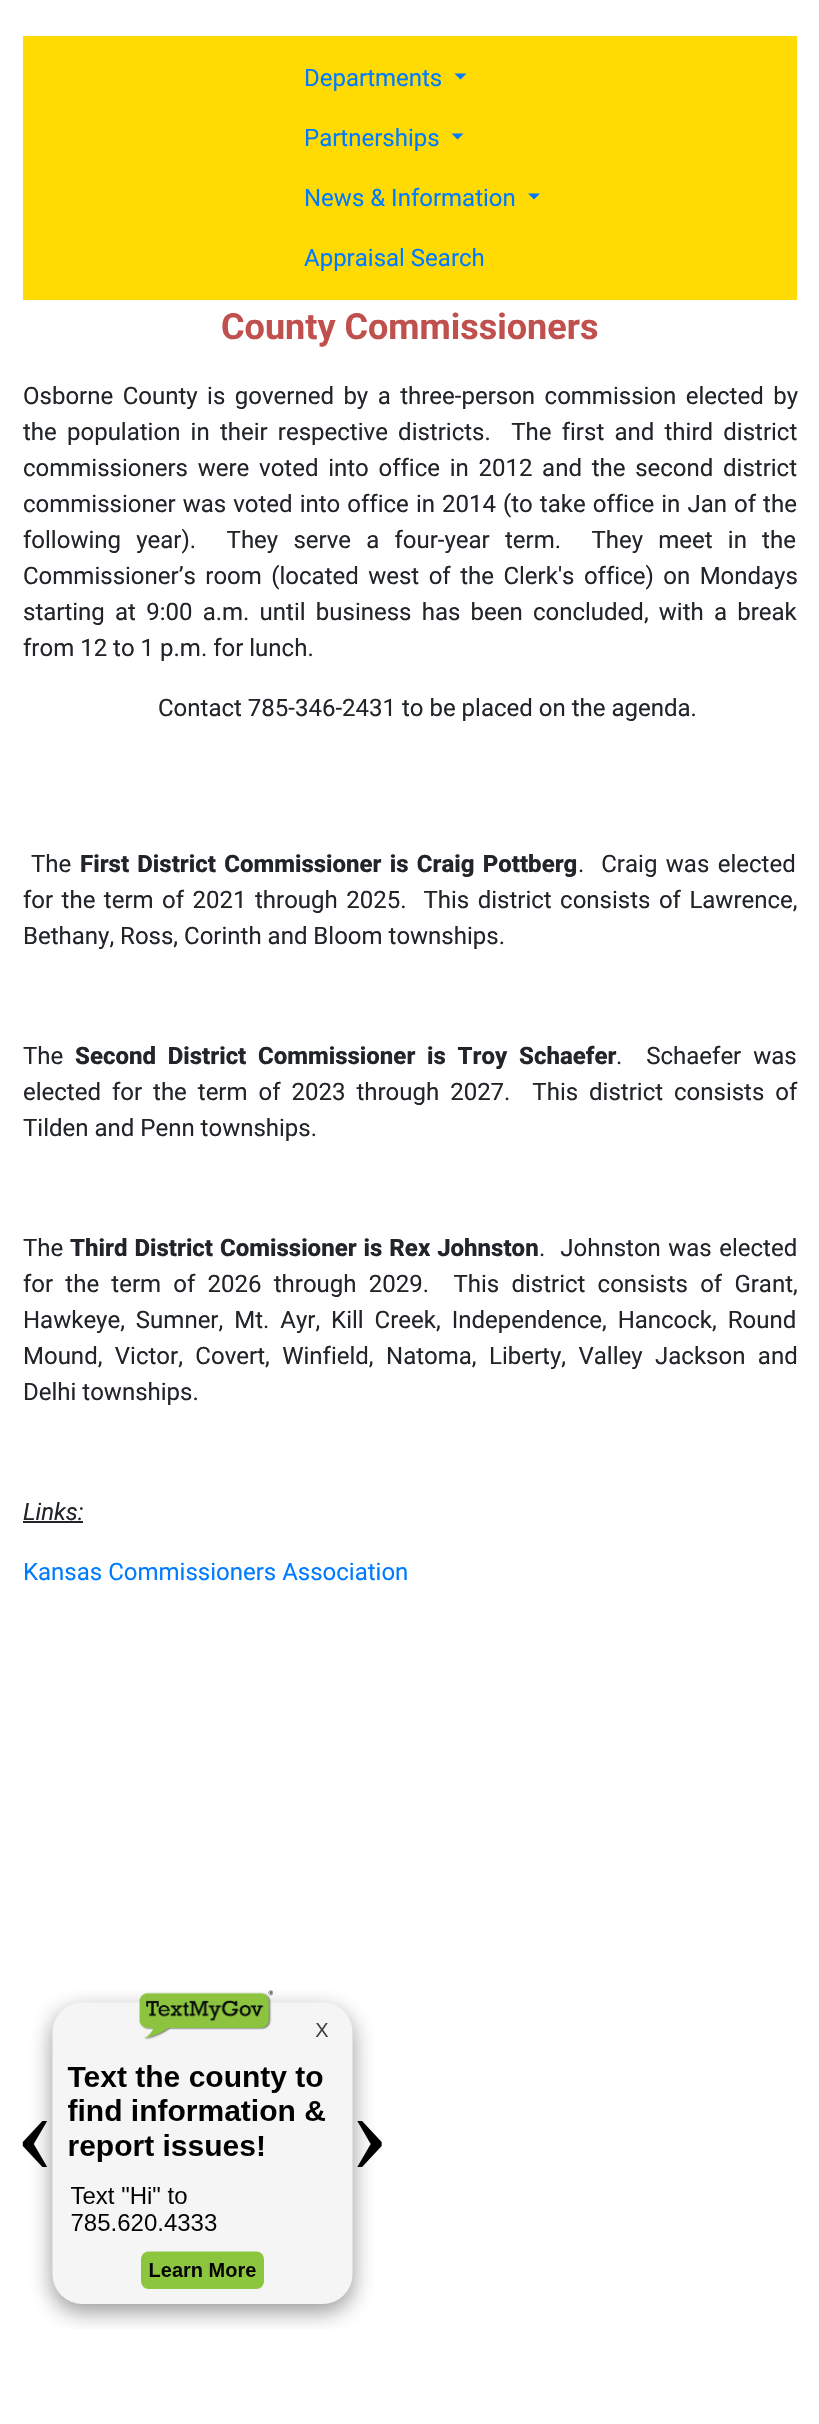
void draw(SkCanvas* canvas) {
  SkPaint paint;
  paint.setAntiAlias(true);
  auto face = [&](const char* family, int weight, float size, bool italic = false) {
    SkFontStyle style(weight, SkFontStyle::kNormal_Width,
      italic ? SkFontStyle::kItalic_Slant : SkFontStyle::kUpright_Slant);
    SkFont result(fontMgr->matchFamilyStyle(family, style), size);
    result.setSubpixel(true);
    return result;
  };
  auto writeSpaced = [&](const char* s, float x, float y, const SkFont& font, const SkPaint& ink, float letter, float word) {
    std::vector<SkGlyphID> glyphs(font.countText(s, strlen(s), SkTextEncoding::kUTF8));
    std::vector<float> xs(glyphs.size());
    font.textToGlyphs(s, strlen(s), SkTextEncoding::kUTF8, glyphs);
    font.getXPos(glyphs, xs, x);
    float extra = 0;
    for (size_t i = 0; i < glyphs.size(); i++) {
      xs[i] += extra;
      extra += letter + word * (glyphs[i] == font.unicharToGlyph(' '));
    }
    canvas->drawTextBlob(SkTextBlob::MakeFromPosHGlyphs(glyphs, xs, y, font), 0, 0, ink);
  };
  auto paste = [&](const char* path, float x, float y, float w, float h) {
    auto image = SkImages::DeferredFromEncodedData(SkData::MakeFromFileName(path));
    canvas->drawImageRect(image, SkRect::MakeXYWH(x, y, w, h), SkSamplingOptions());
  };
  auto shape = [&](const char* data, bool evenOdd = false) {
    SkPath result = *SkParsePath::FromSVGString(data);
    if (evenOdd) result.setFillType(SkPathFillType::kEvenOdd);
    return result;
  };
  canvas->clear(0xffffffff);
  paint.setColor(0xffffda03);
  canvas->drawRect(SkRect::MakeXYWH(23, 36, 774, 264), paint);
  paint.setColor(0xff007bff);
  canvas->drawPath(shape("M454.5 73.5H466.5L460.5 79.5Z"), paint);
  canvas->drawPath(shape("M451.5 133.5H463.5L457.5 139.5Z"), paint);
  canvas->drawPath(shape("M528 193.5H540L534 199.5Z"), paint);
  paint.setColor(0xff212529);
  canvas->drawRect(SkRect::MakeXYWH(23, 1521, 60, 2), paint);
  paste("img/1.png", 22, 1990, 360, 339);
  auto f0 = face("Roboto", 400, 24);
  paint.setColor(0xff007bff);
  {
    const struct { const char* s; float x, y; } items[] = {
      {"Departments", 304, 86},
      {"Partnerships", 304, 146},
      {"News & Information", 304, 206},
      {"Appraisal Search", 304, 266},
    };
    for (auto [s, x, y] : items) {
      canvas->drawString(s, x, y, f0, paint);
    }
  }
  auto f1 = face("Roboto", 700, 36);
  paint.setColor(0xffc0504d);
  canvas->drawString("County Commissioners", 221, 339, f1, paint);
  paint.setColor(0xff212529);
  writeSpaced("Osborne County is governed by a three-person commission elected by", 23, 404, f0, paint, 0, 3.5f);
  writeSpaced("the population in their respective districts.  The first and third district", 23, 440, f0, paint, 0, 4.25f);
  writeSpaced("commissioners were voted into office in 2012 and the second district", 23, 476, f0, paint, 0, 3.75f);
  writeSpaced("commissioner was voted into office in 2014 (to take office in Jan of the", 23, 512, f0, paint, 0, 1.1f);
  writeSpaced("following year).  They serve a four-year term.  They meet in the", 23, 548, f0, paint, 0, 9.25f);
  writeSpaced("Commissioner’s room (located west of the Clerk's office) on Mondays", 23, 584, f0, paint, 0, 3.5f);
  writeSpaced("starting at 9:00 a.m. until business has been concluded, with a break", 23, 620, f0, paint, 0, 4.25f);
  {
    const struct { const char* s; float x, y; } items[] = {
      {"from 12 to 1 p.m. for lunch.", 23, 656},
      {"Contact 785-346-2431 to be placed on the agenda.", 158, 716},
      {"The", 31, 872},
    };
    for (auto [s, x, y] : items) {
      canvas->drawString(s, x, y, f0, paint);
    }
  }
  auto f2 = face("Roboto", 800, 24);
  writeSpaced("First District Commissioner is Craig Pottberg", 80, 872, f2, paint, 0, 2.25f);
  writeSpaced(".  Craig was elected", 578, 872, f0, paint, 0, 2.5f);
  writeSpaced("for the term of 2021 through 2025.  This district consists of Lawrence,", 23, 908, f0, paint, 0, 2.5f);
  canvas->drawString("Bethany, Ross, Corinth and Bloom townships.", 23, 944, f0, paint);
  canvas->drawString("The", 23, 1064, f0, paint);
  writeSpaced("Second District Commissioner is Troy Schaefer", 75, 1064, f2, paint, 0, 5.75f);
  writeSpaced(".  Schaefer was", 616, 1064, f0, paint, 0, 6);
  writeSpaced("elected for the term of 2023 through 2027.  This district consists of", 23, 1100, f0, paint, 0, 5);
  canvas->drawString("Tilden and Penn townships.", 23, 1136, f0, paint);
  canvas->drawString("The", 23, 1256, f0, paint);
  writeSpaced("Third District Comissioner is Rex Johnston", 70, 1256, f2, paint, 0, 1);
  writeSpaced(".  Johnston was elected", 539, 1256, f0, paint, 0, 1.5f);
  writeSpaced("for the term of 2026 through 2029.  This district consists of Grant,", 23, 1292, f0, paint, 0, 6.25f);
  writeSpaced("Hawkeye, Sumner, Mt. Ayr, Kill Creek, Independence, Hancock, Round", 23, 1328, f0, paint, 0, 5);
  writeSpaced("Mound, Victor, Covert, Winfield, Natoma, Liberty, Valley Jackson and", 23, 1364, f0, paint, 0, 6.5f);
  canvas->drawString("Delhi townships.", 23, 1400, f0, paint);
  auto f3 = face("Roboto", 400, 24, true);
  canvas->drawString("Links:", 23, 1520, f3, paint);
  paint.setColor(0xff007bff);
  canvas->drawString("Kansas Commissioners Association", 23, 1580, f0, paint);
}
